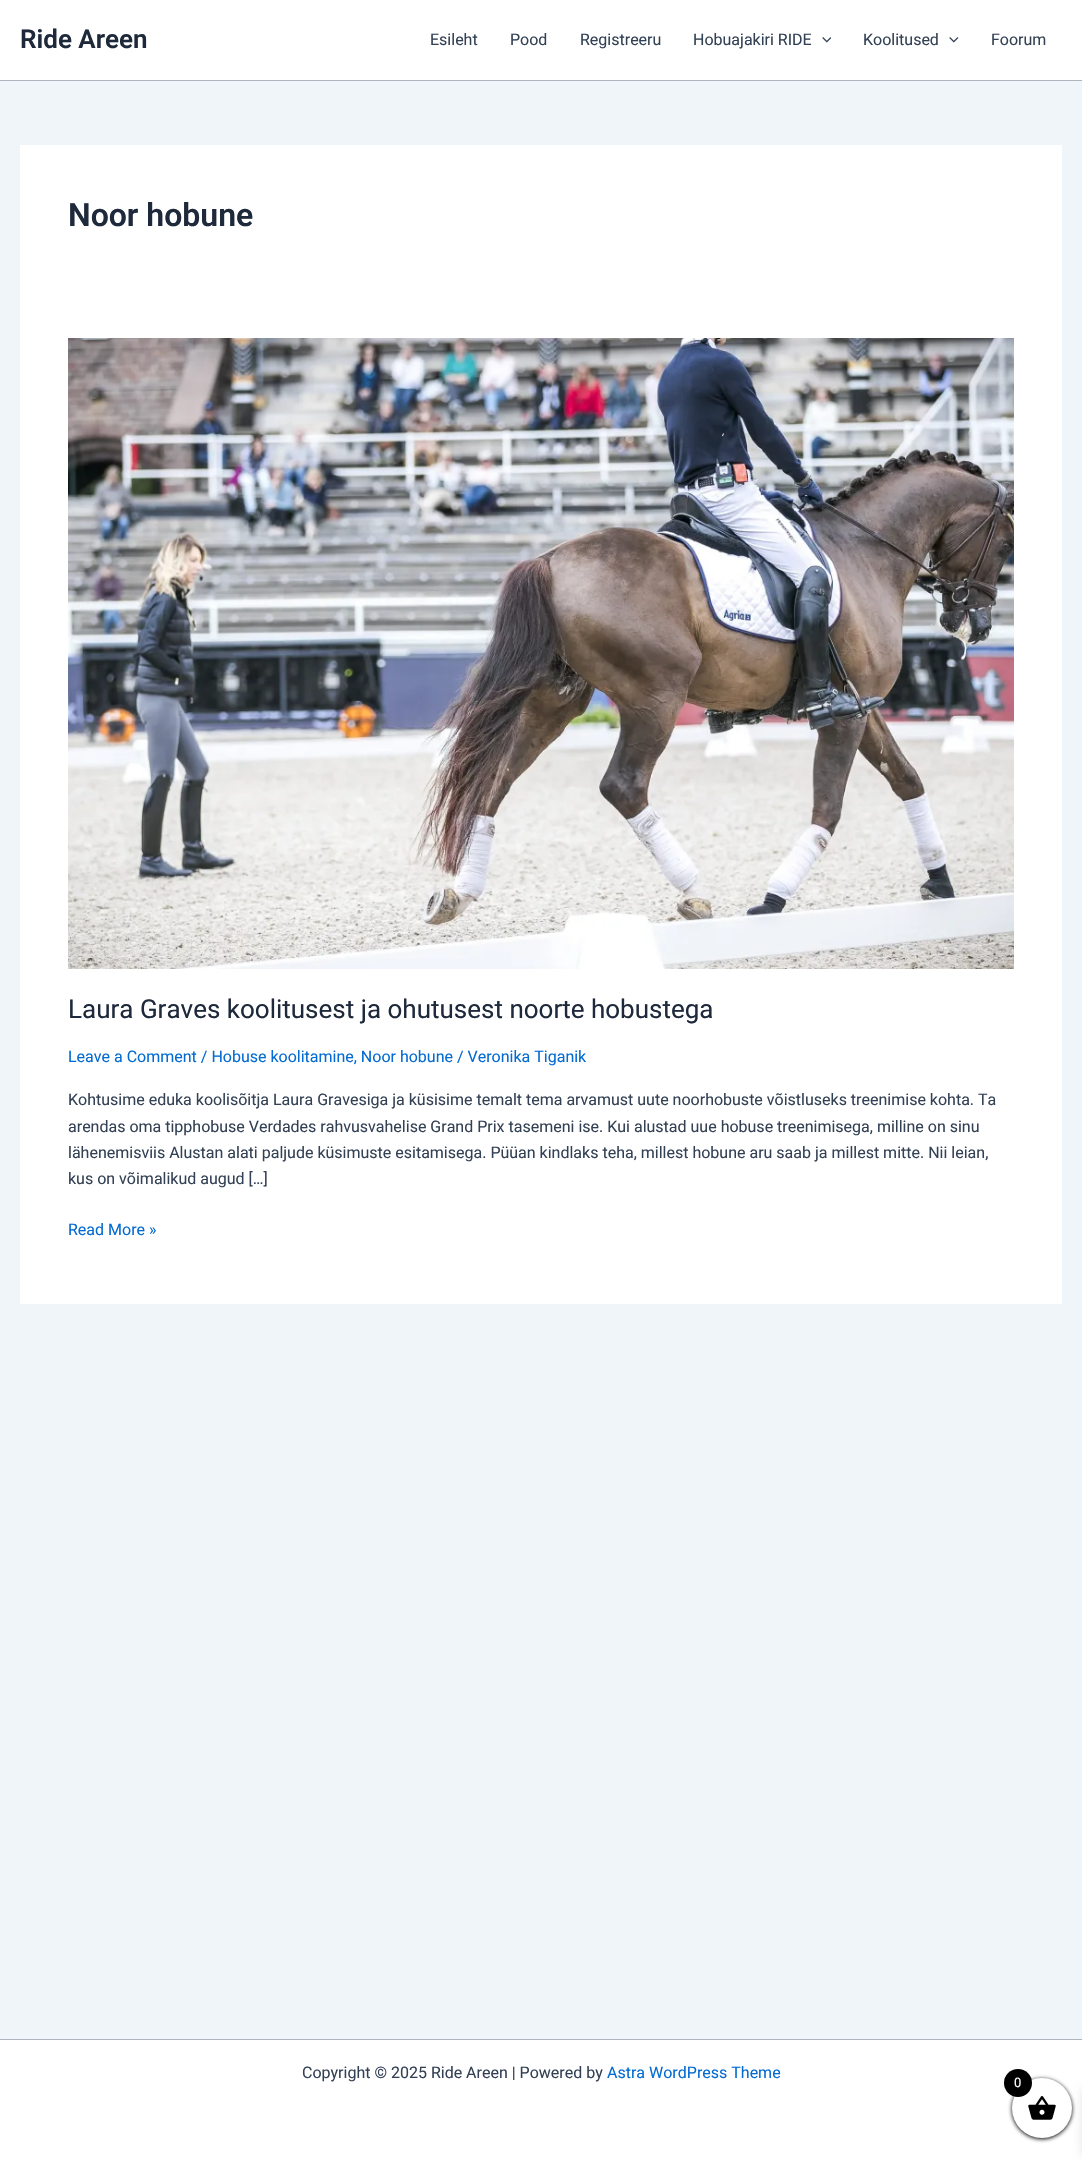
void draw(SkCanvas* canvas) {
  SkPaint paint;
  paint.setAntiAlias(true);
  auto face = [&](const char* family, int weight, float size, bool italic = false) {
    SkFontStyle style(weight, SkFontStyle::kNormal_Width,
      italic ? SkFontStyle::kItalic_Slant : SkFontStyle::kUpright_Slant);
    SkFont result(fontMgr->matchFamilyStyle(family, style), size);
    result.setSubpixel(true);
    return result;
  };
  auto paste = [&](const char* path, float x, float y, float w, float h) {
    auto image = SkImages::DeferredFromEncodedData(SkData::MakeFromFileName(path));
    canvas->drawImageRect(image, SkRect::MakeXYWH(x, y, w, h), SkSamplingOptions());
  };
  canvas->clear(0xfff0f5fa);
  paint.setColor(0xffffffff);
  canvas->drawRect(SkRect::MakeXYWH(0, 0, 1082, 80), paint);
  paint.setColor(0xffadb6be);
  canvas->drawRect(SkRect::MakeXYWH(0, 80, 1082, 1), paint);
  paste("img/1.png", 822, 37, 9, 6);
  paste("img/2.png", 949, 37, 10, 6);
  paint.setColor(0xffffffff);
  canvas->drawRect(SkRect::MakeXYWH(20, 145, 1042, 1159), paint);
  paste("img/3.png", 68, 338, 946, 631);
  canvas->drawRect(SkRect::MakeXYWH(0, 2040, 1082, 120), paint);
  paint.setColor(0xffadb6be);
  canvas->drawRect(SkRect::MakeXYWH(0, 2039, 1082, 1), paint);
  paint.setColor(0xff000000);
  paint.setMaskFilter(SkMaskFilter::MakeBlur(kNormal_SkBlurStyle, 2));
  canvas->drawRoundRect(SkRect::MakeXYWH(1012, 2079, 60, 60), 30, 30, paint);
  paint.setMaskFilter(nullptr);
  paint.setColor(0x1a000000);
  paint.setMaskFilter(SkMaskFilter::MakeBlur(kNormal_SkBlurStyle, 5));
  canvas->drawRect(SkRect::MakeXYWH(1082, 2089, 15, 66), paint);
  paint.setMaskFilter(nullptr);
  paint.setColor(0xffffffff);
  canvas->drawCircle(1042, 2108, 30, paint);
  paste("img/4.png", 1028, 2096, 28, 24);
  paint.setColor(0xff000000);
  canvas->drawCircle(1018, 2083, 14, paint);
  auto f0 = face("Roboto", 600, 26);
  paint.setColor(0xff1e293b);
  canvas->drawString("Ride Areen", 20, 48, f0, paint);
  auto f1 = face("Roboto", 400, 16);
  paint.setColor(0xff334155);
  {
    const struct { const char* s; float x, y; } items[] = {
      {"Esileht", 430, 45},
      {"Pood", 510, 45},
      {"Registreeru", 580, 45},
      {"Hobuajakiri RIDE", 693, 45},
      {"Koolitused", 863, 45},
      {"Foorum", 991, 45},
    };
    for (auto [s, x, y] : items) {
      canvas->drawString(s, x, y, f1, paint);
    }
  }
  auto f2 = face("Roboto", 600, 32);
  paint.setColor(0xff1e293b);
  canvas->drawString("Noor hobune", 68, 226, f2, paint);
  auto f3 = face("Roboto", 400, 26);
  canvas->drawString("Laura Graves koolitusest ja ohutusest noorte hobustega", 68, 1018, f3, paint);
  paint.setColor(0xff046bd2);
  canvas->drawString("Leave a Comment / Hobuse koolitamine, Noor hobune / Veronika Tiganik", 68, 1062, f1, paint);
  paint.setColor(0xff334155);
  {
    const struct { const char* s; float x, y; } items[] = {
      {"Kohtusime eduka koolisõitja Laura Gravesiga ja küsisime temalt tema arvamust uute noorhobuste võistluseks treenimise kohta. Ta", 68, 1105},
      {"arendas oma tipphobuse Verdades rahvusvahelise Grand Prix tasemeni ise. Kui alustad uue hobuse treenimisega, milline on sinu", 68, 1132},
      {"lähenemisviis Alustan alati paljude küsimuste esitamisega. Püüan kindlaks teha, millest hobune aru saab ja millest mitte. Nii leian,", 68, 1158},
      {"kus on võimalikud augud […]", 68, 1184},
    };
    for (auto [s, x, y] : items) {
      canvas->drawString(s, x, y, f1, paint);
    }
  }
  paint.setColor(0xff046bd2);
  canvas->drawString("Read More »", 68, 1235, f1, paint);
  paint.setColor(0xff334155);
  canvas->drawString("Copyright © 2025 Ride Areen | Powered by", 302, 2078, f1, paint);
  paint.setColor(0xff046bd2);
  canvas->drawString("Astra WordPress Theme", 607, 2078, f1, paint);
  auto f4 = face("Roboto", 400, 13);
  paint.setColor(0xffffffff);
  canvas->drawString("0", 1014, 2087, f4, paint);
}
